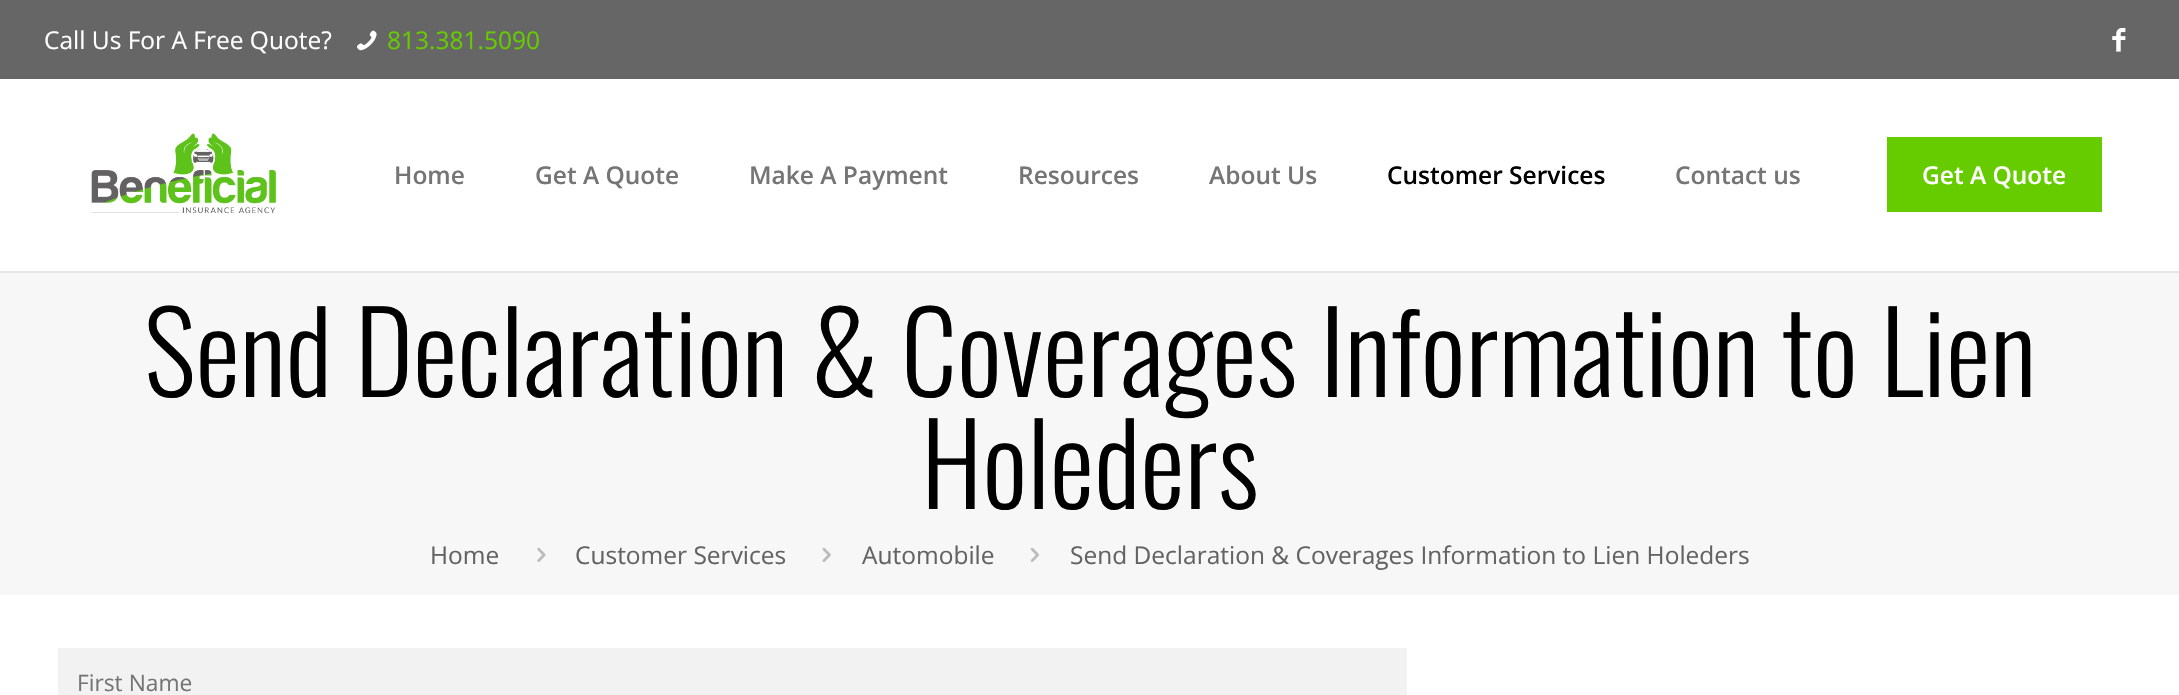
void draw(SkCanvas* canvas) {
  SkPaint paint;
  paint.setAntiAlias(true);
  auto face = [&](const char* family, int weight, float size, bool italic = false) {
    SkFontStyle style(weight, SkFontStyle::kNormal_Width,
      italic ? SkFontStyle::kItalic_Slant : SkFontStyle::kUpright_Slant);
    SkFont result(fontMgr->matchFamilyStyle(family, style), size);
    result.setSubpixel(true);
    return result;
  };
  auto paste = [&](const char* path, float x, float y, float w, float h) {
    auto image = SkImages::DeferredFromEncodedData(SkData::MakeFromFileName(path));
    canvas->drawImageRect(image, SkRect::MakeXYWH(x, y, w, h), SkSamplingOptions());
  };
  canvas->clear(0xffffffff);
  paint.setColor(0xff666666);
  canvas->drawRect(SkRect::MakeXYWH(0, 0, 2179, 79), paint);
  paste("img/1.png", 357, 30, 20, 21);
  paste("img/2.png", 2112, 28, 14, 24);
  paint.setColor(0xffe5e5e5);
  canvas->drawRect(SkRect::MakeXYWH(0, 271, 2179, 2), paint);
  paste("img/3.png", 91, 133, 185, 80);
  paint.setColor(0xff66cc00);
  canvas->drawRect(SkRect::MakeXYWH(1887, 137, 215, 75), paint);
  paint.setColor(0xfff7f7f7);
  canvas->drawRect(SkRect::MakeXYWH(0, 273, 2179, 322), paint);
  paste("img/4.png", 537, 547, 9, 15);
  paste("img/5.png", 822, 547, 9, 15);
  paste("img/6.png", 1030, 547, 9, 15);
  paint.setColor(0xfff2f2f2);
  canvas->drawRect(SkRect::MakeXYWH(58, 648, 1349, 47), paint);
  auto f0 = face("Open Sans", 400, 24.5f);
  paint.setColor(0xffffffff);
  canvas->drawString("Call Us For A Free Quote?", 44, 49, f0, paint);
  paint.setColor(0xff66cc00);
  canvas->drawString("813.381.5090", 387, 49, f0, paint);
  auto f1 = face("Open Sans", 600, 24.5f);
  paint.setColor(0xff757575);
  {
    const struct { const char* s; float x, y; } items[] = {
      {"Home", 394, 184},
      {"Get A Quote", 535, 184},
      {"Make A Payment", 749, 184},
      {"Resources", 1018, 184},
      {"About Us", 1209, 184},
    };
    for (auto [s, x, y] : items) {
      canvas->drawString(s, x, y, f1, paint);
    }
  }
  paint.setColor(0xff000000);
  canvas->drawString("Customer Services", 1387, 184, f1, paint);
  paint.setColor(0xff757575);
  canvas->drawString("Contact us", 1675, 184, f1, paint);
  paint.setColor(0xffffffff);
  canvas->drawString("Get A Quote", 1922, 184, f1, paint);
  auto f2 = face("Oswald", 300, 112);
  paint.setColor(0xff000000);
  canvas->drawString("Send Declaration & Coverages Information to Lien", 144, 397, f2, paint);
  canvas->drawString("Holeders", 921, 509, f2, paint);
  paint.setColor(0xff636363);
  {
    const struct { const char* s; float x, y; } items[] = {
      {"Home", 430, 564},
      {"Customer Services", 575, 564},
      {"Automobile", 862, 564},
      {"Send Declaration & Coverages Information to Lien Holeders", 1070, 564},
    };
    for (auto [s, x, y] : items) {
      canvas->drawString(s, x, y, f0, paint);
    }
  }
  auto f3 = face("Open Sans", 400, 22.75f);
  paint.setColor(0xff757575);
  canvas->drawString("First Name", 77, 691, f3, paint);
}
